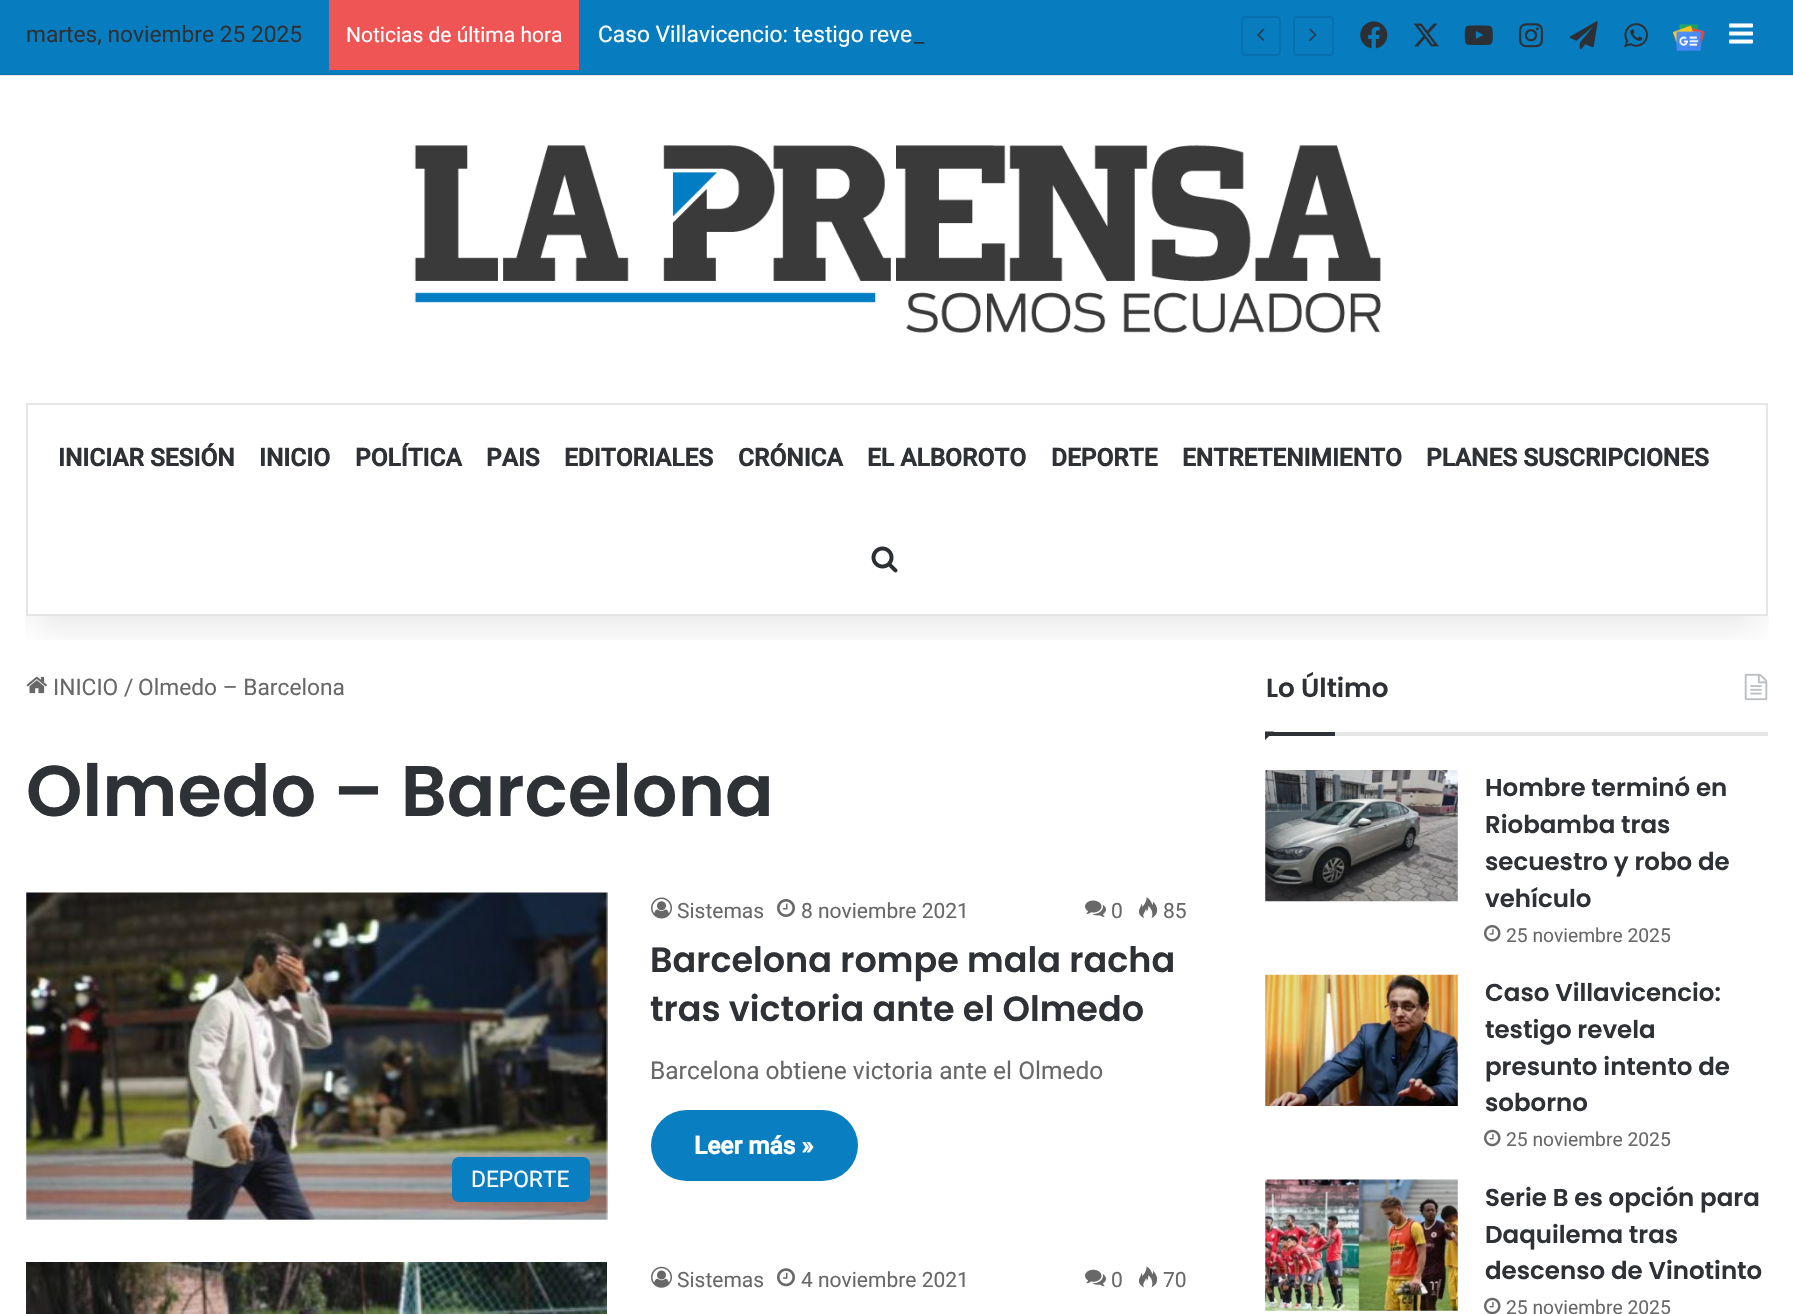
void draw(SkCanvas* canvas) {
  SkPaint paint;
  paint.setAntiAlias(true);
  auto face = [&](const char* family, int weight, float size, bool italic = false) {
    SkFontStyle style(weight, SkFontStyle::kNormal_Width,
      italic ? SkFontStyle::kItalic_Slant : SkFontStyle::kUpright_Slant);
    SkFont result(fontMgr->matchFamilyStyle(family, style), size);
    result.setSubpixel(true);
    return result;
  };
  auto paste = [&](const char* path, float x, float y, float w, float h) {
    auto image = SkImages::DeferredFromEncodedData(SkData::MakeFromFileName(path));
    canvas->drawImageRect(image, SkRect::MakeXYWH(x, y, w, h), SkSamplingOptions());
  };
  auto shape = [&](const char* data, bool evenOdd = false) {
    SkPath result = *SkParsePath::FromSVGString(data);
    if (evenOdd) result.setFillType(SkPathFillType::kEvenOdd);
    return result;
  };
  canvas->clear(0xffffffff);
  paint.setColor(0xffe6e6e6);
  canvas->drawRect(SkRect::MakeXYWH(0, 75, 1793, 1), paint);
  paste("img/13.png", 26, 676, 21, 18);
  paste("img/24.png", 1744, 673, 24, 28);
  canvas->save();
  canvas->clipRect(SkRect::MakeXYWH(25, 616, 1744, 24));
  paint.setColor(0x1a000000);
  paint.setMaskFilter(SkMaskFilter::MakeBlur(kNormal_SkBlurStyle, 17.5f));
  canvas->drawRect(SkRect::MakeXYWH(35, 79, 1724, 546), paint);
  paint.setMaskFilter(nullptr);
  canvas->restore();
  {
    const struct { float x, y, w, h; SkColor color; } items[] = {
      {0, 0, 1793, 74, 0xff077dbf},
      {0, 74, 1793, 1, 0xff0671ac},
      {329, 0, 250, 70, 0xfff05555},
    };
    for (auto [x, y, w, h, color] : items) {
      paint.setColor(color);
      canvas->drawRect(SkRect::MakeXYWH(x, y, w, h), paint);
    }
  }
  paint.setStroke(true);
  paint.setStrokeWidth(2);
  paint.setColor(0xff0671ac);
  canvas->drawRoundRect(SkRect::MakeXYWH(1242, 17, 38, 38), 3, 3, paint);
  paste("img/1.png", 1257, 28, 8, 14);
  canvas->drawRoundRect(SkRect::MakeXYWH(1294, 17, 39, 38), 3, 3, paint);
  paste("img/2.png", 1309, 28, 8, 14);
  paste("img/3.png", 1360, 21, 28, 28);
  paste("img/4.png", 1413, 23, 26, 24);
  paste("img/5.png", 1464, 25, 29, 21);
  paste("img/6.png", 1519, 23, 24, 25);
  paste("img/7.png", 1569, 21, 29, 29);
  paste("img/8.png", 1624, 23, 24, 25);
  paste("img/9.png", 1673, 24, 32, 27);
  paste("img/10.png", 1729, 23, 24, 21);
  paste("img/11.png", 414, 145, 967, 188);
  paint.setColor(0xffe6e6e6);
  canvas->drawRect(SkRect::MakeXYWH(27, 404, 1740, 211), paint);
  paste("img/12.png", 871, 546, 27, 27);
  paste("img/14.png", 651, 897, 21, 22);
  paste("img/15.png", 777, 899, 18, 18);
  paste("img/16.png", 1085, 900, 21, 17);
  paste("img/17.png", 1139, 897, 19, 22);
  paint.setStroke(false);
  paint.setColor(0xff097ec0);
  canvas->drawRoundRect(SkRect::MakeXYWH(651, 1110, 207, 71), 35.5f, 35.5f, paint);
  paste("img/18.png", 26, 892, 582, 328);
  canvas->drawRoundRect(SkRect::MakeXYWH(452, 1157, 138, 45), 7, 7, paint);
  paste("img/19.png", 26, 1262, 581, 52);
  paste("img/20.png", 651, 1266, 21, 22);
  paste("img/21.png", 777, 1268, 18, 19);
  paste("img/22.png", 1085, 1269, 21, 18);
  paste("img/23.png", 1139, 1266, 19, 22);
  paint.setColor(0xffe6e6e6);
  canvas->drawRect(SkRect::MakeXYWH(1335, 732, 433, 4), paint);
  paint.setColor(0xff2e3136);
  canvas->drawPath(shape("M1265 731.5H1274L1265 740Z"), paint);
  canvas->drawRect(SkRect::MakeXYWH(1265, 732, 70, 4), paint);
  paste("img/25.png", 1265, 770, 193, 132);
  paste("img/26.png", 1484, 925, 17, 17);
  paste("img/27.png", 1265, 974, 193, 132);
  paste("img/28.png", 1484, 1129, 17, 18);
  paste("img/29.png", 1265, 1179, 193, 132);
  paste("img/30.png", 1484, 1297, 17, 17);
  auto f0 = face("Roboto", 400, 22.75f);
  canvas->drawString("martes, noviembre 25 2025", 26, 42, f0, paint);
  auto f1 = face("Roboto", 400, 21);
  paint.setColor(0xffffffff);
  canvas->drawString("Noticias de última hora", 346, 42, f1, paint);
  canvas->drawString("Caso Villavicencio: testigo reve", 598, 42, f0, paint);
  paint.setColor(0xff2e3136);
  canvas->drawString("_", 914, 42, f0, paint);
  auto f2 = face("Roboto", 700, 24.5f);
  {
    const struct { const char* s; float x, y; } items[] = {
      {"INICIAR SESIÓN", 58, 466},
      {"INICIO", 259, 466},
      {"POLÍTICA", 355, 466},
      {"PAIS", 486, 466},
      {"EDITORIALES", 564, 466},
      {"CRÓNICA", 738, 466},
      {"EL ALBOROTO", 867, 466},
      {"DEPORTE", 1051, 466},
      {"ENTRETENIMIENTO", 1182, 466},
      {"PLANES SUSCRIPCIONES", 1426, 466},
    };
    for (auto [s, x, y] : items) {
      canvas->drawString(s, x, y, f2, paint);
    }
  }
  paint.setColor(0xff686868);
  {
    const struct { const char* s; float x, y; } items[] = {
      {"INICIO", 53, 695},
      {"/", 124, 695},
      {"Olmedo – Barcelona", 138, 695},
    };
    for (auto [s, x, y] : items) {
      canvas->drawString(s, x, y, f0, paint);
    }
  }
  auto f3 = face("Poppins", 600, 71.75f);
  paint.setColor(0xff2e3136);
  canvas->drawString("Olmedo – Barcelona", 26, 816, f3, paint);
  paint.setColor(0xff686868);
  {
    const struct { const char* s; float x, y; } items[] = {
      {"Sistemas", 677, 918},
      {"8 noviembre 2021", 801, 918},
      {"0", 1111, 918},
      {"85", 1163, 918},
    };
    for (auto [s, x, y] : items) {
      canvas->drawString(s, x, y, f1, paint);
    }
  }
  auto f4 = face("Poppins", 600, 35);
  paint.setColor(0xff2e3136);
  canvas->drawString("Barcelona rompe mala racha", 650, 972, f4, paint);
  canvas->drawString("tras victoria ante el Olmedo", 650, 1021, f4, paint);
  auto f5 = face("Roboto", 400, 24.5f);
  paint.setColor(0xff686868);
  canvas->drawString("Barcelona obtiene victoria ante el Olmedo", 650, 1079, f5, paint);
  paint.setColor(0xffffffff);
  canvas->drawString("Leer más »", 694, 1154, f2, paint);
  canvas->drawString("DEPORTE", 471, 1187, f0, paint);
  paint.setColor(0xff686868);
  {
    const struct { const char* s; float x, y; } items[] = {
      {"Sistemas", 677, 1287},
      {"4 noviembre 2021", 801, 1287},
      {"0", 1111, 1287},
      {"70", 1163, 1287},
    };
    for (auto [s, x, y] : items) {
      canvas->drawString(s, x, y, f1, paint);
    }
  }
  auto f6 = face("Poppins", 600, 26.25f);
  paint.setColor(0xff2e3136);
  canvas->drawString("Lo Último", 1266, 697, f6, paint);
  auto f7 = face("Poppins", 600, 24.5f);
  {
    const struct { const char* s; float x, y; } items[] = {
      {"Hombre terminó en", 1485, 796},
      {"Riobamba tras", 1485, 833},
      {"secuestro y robo de", 1485, 870},
      {"vehículo", 1485, 907},
    };
    for (auto [s, x, y] : items) {
      canvas->drawString(s, x, y, f7, paint);
    }
  }
  auto f8 = face("Roboto", 400, 19.25f);
  paint.setColor(0xff686868);
  canvas->drawString("25 noviembre 2025", 1506, 942, f8, paint);
  paint.setColor(0xff2e3136);
  {
    const struct { const char* s; float x, y; } items[] = {
      {"Caso Villavicencio:", 1485, 1001},
      {"testigo revela", 1485, 1038},
      {"presunto intento de", 1485, 1075},
      {"soborno", 1485, 1111},
    };
    for (auto [s, x, y] : items) {
      canvas->drawString(s, x, y, f7, paint);
    }
  }
  paint.setColor(0xff686868);
  canvas->drawString("25 noviembre 2025", 1506, 1146, f8, paint);
  paint.setColor(0xff2e3136);
  {
    const struct { const char* s; float x, y; } items[] = {
      {"Serie B es opción para", 1485, 1206},
      {"Daquilema tras", 1485, 1243},
      {"descenso de Vinotinto", 1485, 1279},
    };
    for (auto [s, x, y] : items) {
      canvas->drawString(s, x, y, f7, paint);
    }
  }
  paint.setColor(0xff686868);
  canvas->drawString("25 noviembre 2025", 1506, 1314, f8, paint);
}
